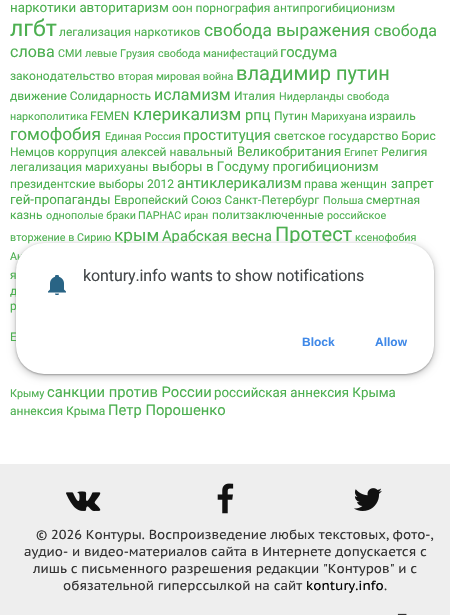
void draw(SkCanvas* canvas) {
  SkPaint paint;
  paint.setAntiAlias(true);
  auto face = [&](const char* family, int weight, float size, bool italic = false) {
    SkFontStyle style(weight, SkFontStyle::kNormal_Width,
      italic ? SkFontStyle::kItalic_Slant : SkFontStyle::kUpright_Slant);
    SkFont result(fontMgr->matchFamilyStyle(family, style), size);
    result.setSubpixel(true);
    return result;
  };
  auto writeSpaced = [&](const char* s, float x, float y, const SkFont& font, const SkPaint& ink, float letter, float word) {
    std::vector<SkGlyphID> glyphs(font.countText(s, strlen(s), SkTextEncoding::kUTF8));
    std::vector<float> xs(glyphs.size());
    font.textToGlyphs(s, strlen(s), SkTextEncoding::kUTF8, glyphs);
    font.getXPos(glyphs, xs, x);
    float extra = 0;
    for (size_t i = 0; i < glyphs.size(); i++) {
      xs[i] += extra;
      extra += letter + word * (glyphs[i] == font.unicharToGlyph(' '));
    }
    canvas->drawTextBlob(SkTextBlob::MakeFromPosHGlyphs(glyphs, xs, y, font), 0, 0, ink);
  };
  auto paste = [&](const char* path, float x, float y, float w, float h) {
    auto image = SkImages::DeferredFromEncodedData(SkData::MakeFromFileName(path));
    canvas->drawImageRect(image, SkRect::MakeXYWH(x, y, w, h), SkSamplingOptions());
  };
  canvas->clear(0xffffffff);
  paint.setColor(0x26000000);
  paint.setMaskFilter(SkMaskFilter::MakeBlur(kNormal_SkBlurStyle, 3));
  canvas->drawRoundRect(SkRect::MakeXYWH(14, 243, 422, 135), 30, 30, paint);
  paint.setMaskFilter(nullptr);
  paint.setColor(0x4d000000);
  paint.setMaskFilter(SkMaskFilter::MakeBlur(kNormal_SkBlurStyle, 1));
  canvas->drawRoundRect(SkRect::MakeXYWH(16, 244, 418, 131), 28, 28, paint);
  paint.setMaskFilter(nullptr);
  paint.setColor(0xffeeeeee);
  canvas->drawRect(SkRect::MakeXYWH(0, 464, 450, 151), paint);
  paste("img/2.png", 66, 491, 35, 20);
  paste("img/3.png", 217, 483, 17, 31);
  paste("img/4.png", 354, 488, 28, 23);
  auto f0 = face("Roboto", 400, 13.3f);
  paint.setColor(0xff4caf50);
  canvas->drawString("наркотики авторитаризм", 10, 12, f0, paint);
  auto f1 = face("Roboto", 400, 12);
  canvas->drawString("оон порнография антипрогибиционизм", 172, 12, f1, paint);
  auto f2 = face("Roboto", 400, 23);
  canvas->drawString("лгбт", 10, 36, f2, paint);
  canvas->drawString("легализация наркотиков", 59, 36, f1, paint);
  auto f3 = face("Roboto", 400, 17.25f);
  canvas->drawString("свобода выражения", 204, 36, f3, paint);
  auto f4 = face("Roboto", 400, 16);
  canvas->drawString("свобода", 374, 36, f4, paint);
  canvas->drawString("слова", 10, 57, f4, paint);
  auto f5 = face("Roboto", 400, 10.75f);
  {
    const struct { const char* s; float x, y; } items[] = {
      {"СМИ", 58, 57},
      {"левые", 85, 57},
      {"Грузия", 120, 57},
      {"свобода манифестаций", 158, 57},
    };
    for (auto [s, x, y] : items) {
      canvas->drawString(s, x, y, f5, paint);
    }
  }
  auto f6 = face("Roboto", 400, 14.75f);
  canvas->drawString("госдума", 280, 57, f6, paint);
  canvas->drawString("законодательство", 10, 80, f1, paint);
  canvas->drawString("вторая мировая война", 118, 80, f5, paint);
  auto f7 = face("Roboto", 400, 20);
  canvas->drawString("владимир путин", 236, 80, f7, paint);
  canvas->drawString("движение Солидарность", 10, 100, f1, paint);
  canvas->drawString("исламизм", 154, 100, f4, paint);
  canvas->drawString("Италия", 234, 100, f1, paint);
  {
    const struct { const char* s; float x, y; } items[] = {
      {"Нидерланды", 279, 100},
      {"свобода", 347, 100},
      {"наркополитика", 10, 120},
    };
    for (auto [s, x, y] : items) {
      canvas->drawString(s, x, y, f5, paint);
    }
  }
  canvas->drawString("FEMEN", 90, 120, f1, paint);
  canvas->drawString("клерикализм", 133, 120, f3, paint);
  canvas->drawString("рпц", 245, 120, f6, paint);
  canvas->drawString("Путин", 274, 120, f1, paint);
  canvas->drawString("Марихуана", 311, 120, f5, paint);
  canvas->drawString("израиль", 369, 120, f1, paint);
  canvas->drawString("гомофобия", 10, 140, f3, paint);
  canvas->drawString("Единая Россия", 105, 140, f5, paint);
  canvas->drawString("проституция", 183, 140, f6, paint);
  canvas->drawString("светское государство Борис", 274, 140, f1, paint);
  canvas->drawString("Немцов коррупция алексей навальный", 10, 156, f1, paint);
  canvas->drawString("Великобритания", 237, 156, f0, paint);
  canvas->drawString("Египет", 344, 156, f5, paint);
  canvas->drawString("Религия", 381, 156, f1, paint);
  canvas->drawString("легализация марихуаны", 10, 171, f1, paint);
  canvas->drawString("выборы в Госдуму прогибиционизм", 152, 171, f0, paint);
  canvas->drawString("президентские выборы 2012", 10, 188, f1, paint);
  canvas->drawString("антиклерикализм", 177, 188, f6, paint);
  canvas->drawString("права женщин", 304, 188, f1, paint);
  canvas->drawString("запрет", 391, 188, f0, paint);
  canvas->drawString("гей-пропаганды", 10, 204, f0, paint);
  canvas->drawString("Европейский Союз Санкт-Петербург", 114, 204, f1, paint);
  canvas->drawString("Польша", 323, 204, f5, paint);
  canvas->drawString("смертная", 366, 204, f1, paint);
  canvas->drawString("казнь", 10, 219, f1, paint);
  {
    const struct { const char* s; float x, y; } items[] = {
      {"однополые браки", 46, 219},
      {"ПАРНАС", 138, 219},
      {"иран", 184, 219},
    };
    for (auto [s, x, y] : items) {
      canvas->drawString(s, x, y, f5, paint);
    }
  }
  canvas->drawString("политзаключенные", 212, 219, f1, paint);
  canvas->drawString("российское", 327, 219, f5, paint);
  canvas->drawString("вторжение в Сирию", 10, 241, f5, paint);
  canvas->drawString("крым", 114, 241, f3, paint);
  canvas->drawString("Арабская весна", 162, 241, f6, paint);
  canvas->drawString("Протест", 275, 241, f7, paint);
  canvas->drawString("ксенофобия", 355, 241, f5, paint);
  canvas->drawString("Ан", 10, 260, f5, paint);
  {
    const struct { const char* s; float x, y; } items[] = {
      {"я", 10, 279},
      {"д", 10, 295},
      {"р", 10, 310},
      {"Е", 10, 341},
    };
    for (auto [s, x, y] : items) {
      canvas->drawString(s, x, y, f1, paint);
    }
  }
  canvas->drawString("Крыму", 10, 397, f5, paint);
  canvas->drawString("санкции против России", 47, 397, f6, paint);
  canvas->drawString("российская аннексия Крыма", 214, 397, f0, paint);
  canvas->drawString("аннексия Крыма", 10, 415, f1, paint);
  canvas->drawString("Петр Порошенко", 108, 415, f6, paint);
  paint.setColor(0xffffffff);
  canvas->drawRoundRect(SkRect::MakeXYWH(16, 243, 418, 131), 28, 28, paint);
  paste("img/1.png", 48, 275, 18, 20);
  paint.setColor(0xff434749);
  writeSpaced("kontury.info wants to show notifications", 83, 281, f4, paint, -0.1f, 0);
  auto f8 = face("Liberation Sans", 700, 12);
  paint.setColor(0xff4089e8);
  canvas->drawString("Block", 302, 346, f8, paint);
  canvas->drawString("Allow", 375, 346, f8, paint);
  auto f9 = face("PT Sans Caption", 400, 13);
  paint.setColor(0xff333333);
  {
    const struct { const char* s; float x, y; } items[] = {
      {"© 2026 Контуры. Воспроизведение любых текстовых, фото-,", 36, 539},
      {"аудио- и видео-материалов сайта в Интернете допускается с", 24, 556},
      {"лишь с письменного разрешения редакции \"Контуров\" и с", 33, 573},
      {"обязательной гиперссылкой на сайт", 63, 590},
    };
    for (auto [s, x, y] : items) {
      canvas->drawString(s, x, y, f9, paint);
    }
  }
  paint.setColor(0xff000000);
  canvas->drawString("kontury.info", 306, 590, f9, paint);
  paint.setColor(0xff333333);
  canvas->drawString(".", 384, 590, f9, paint);
  auto f10 = face("Roboto", 400, 13);
  paint.setColor(0xff222222);
  canvas->drawString("—", 397, 619, f10, paint);
}
